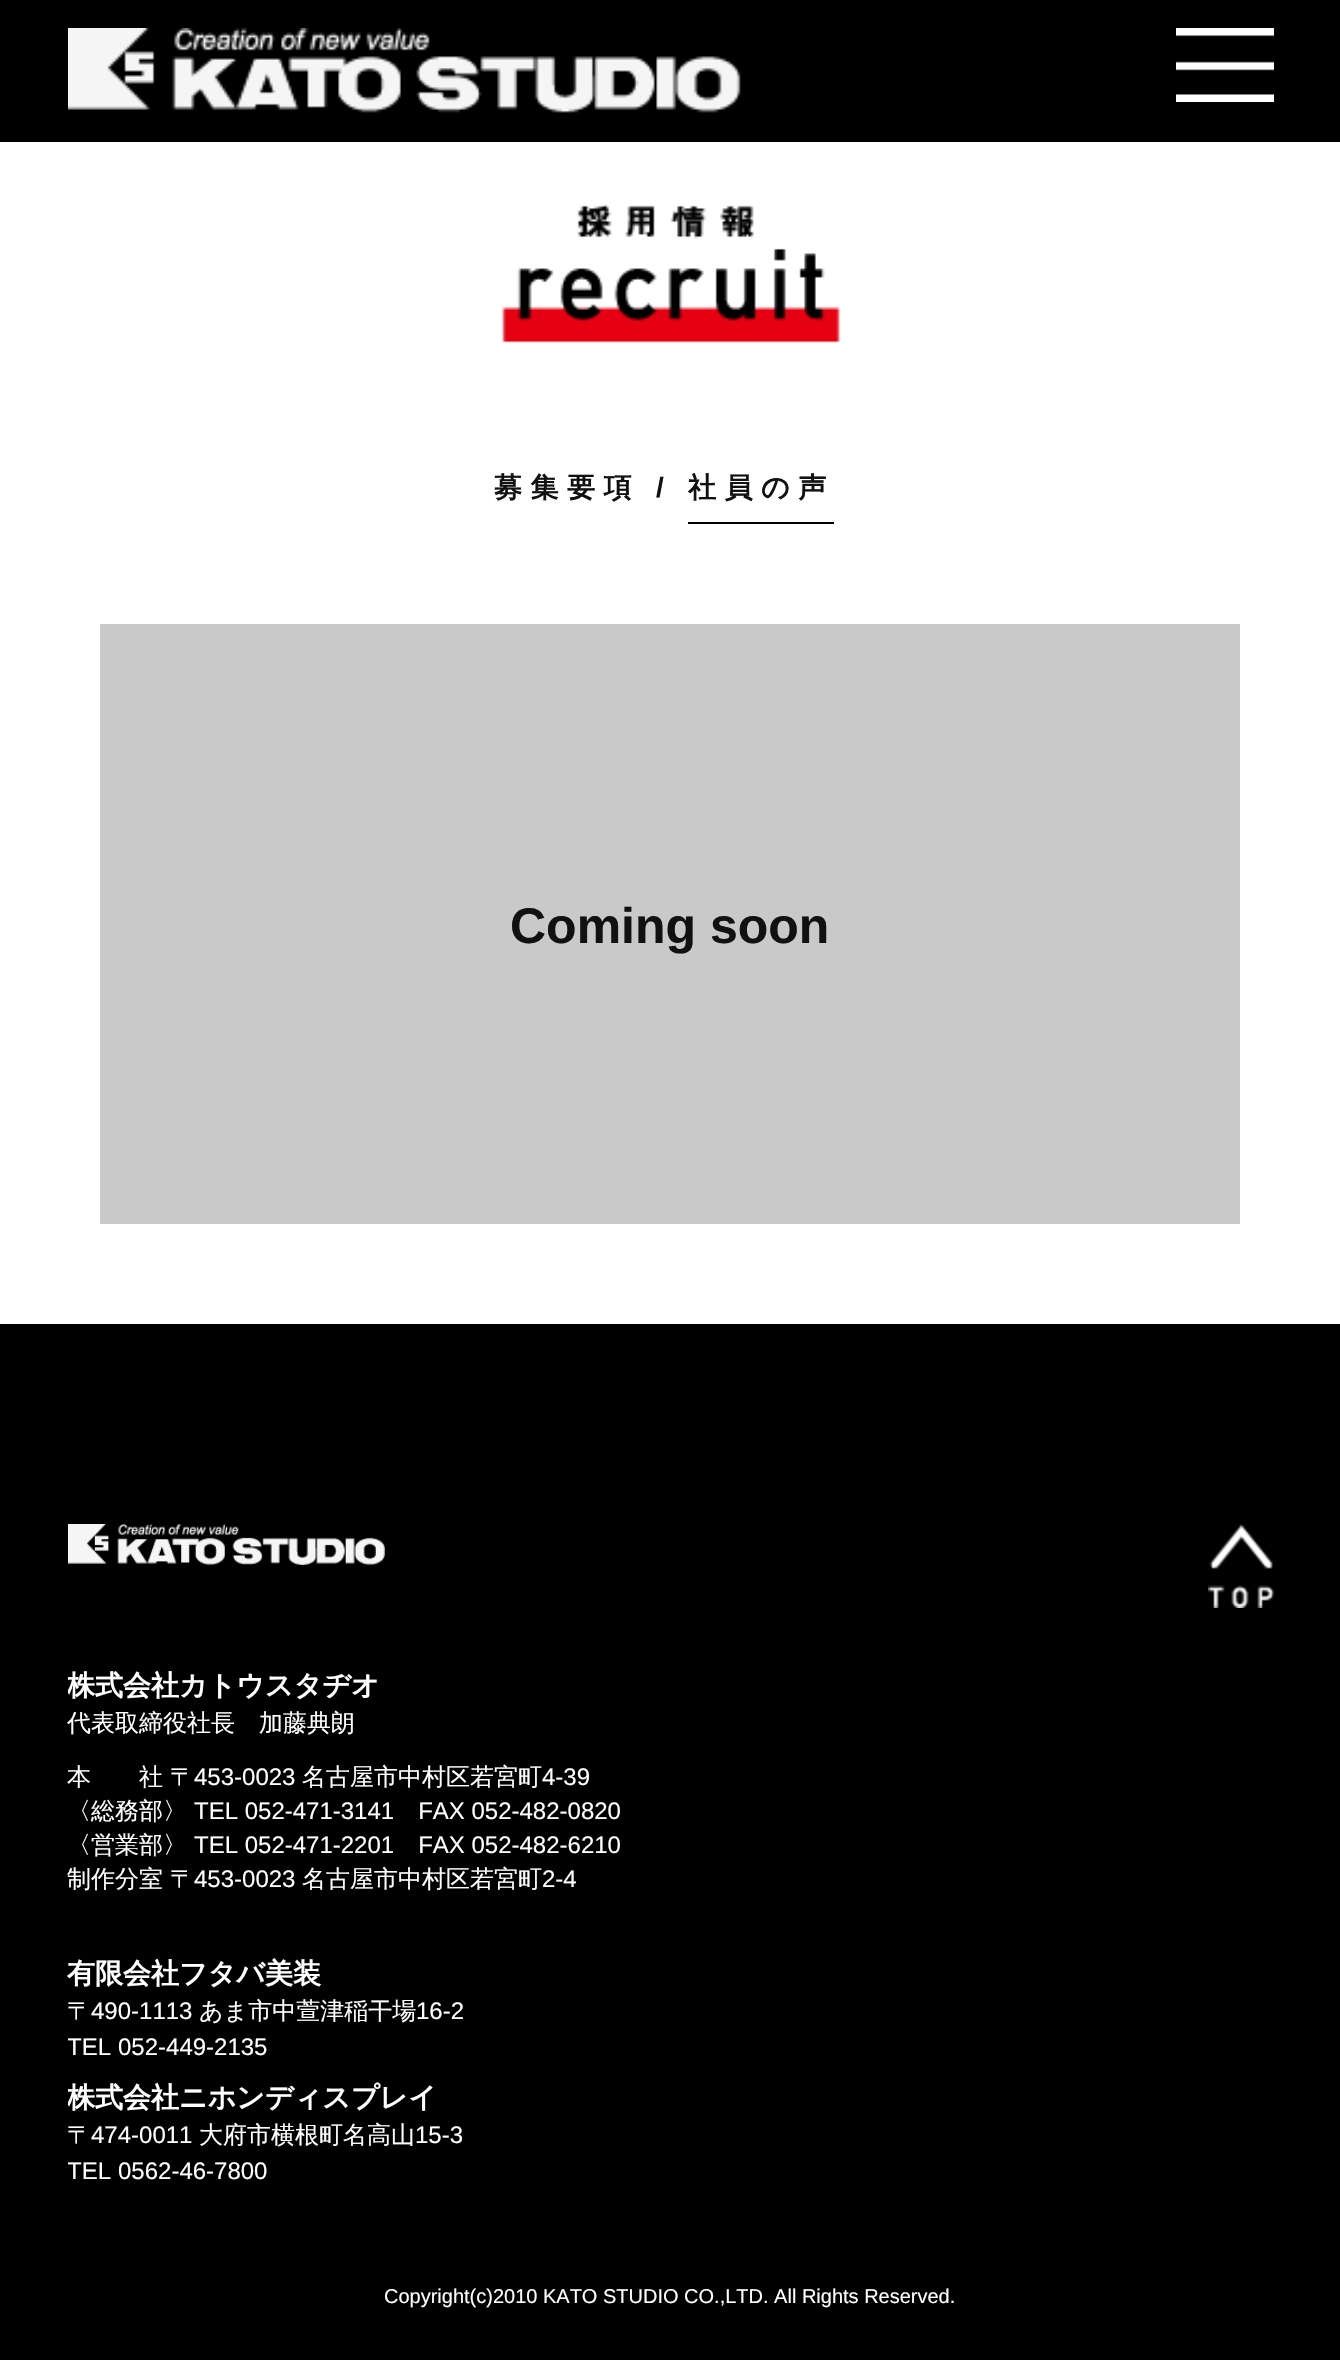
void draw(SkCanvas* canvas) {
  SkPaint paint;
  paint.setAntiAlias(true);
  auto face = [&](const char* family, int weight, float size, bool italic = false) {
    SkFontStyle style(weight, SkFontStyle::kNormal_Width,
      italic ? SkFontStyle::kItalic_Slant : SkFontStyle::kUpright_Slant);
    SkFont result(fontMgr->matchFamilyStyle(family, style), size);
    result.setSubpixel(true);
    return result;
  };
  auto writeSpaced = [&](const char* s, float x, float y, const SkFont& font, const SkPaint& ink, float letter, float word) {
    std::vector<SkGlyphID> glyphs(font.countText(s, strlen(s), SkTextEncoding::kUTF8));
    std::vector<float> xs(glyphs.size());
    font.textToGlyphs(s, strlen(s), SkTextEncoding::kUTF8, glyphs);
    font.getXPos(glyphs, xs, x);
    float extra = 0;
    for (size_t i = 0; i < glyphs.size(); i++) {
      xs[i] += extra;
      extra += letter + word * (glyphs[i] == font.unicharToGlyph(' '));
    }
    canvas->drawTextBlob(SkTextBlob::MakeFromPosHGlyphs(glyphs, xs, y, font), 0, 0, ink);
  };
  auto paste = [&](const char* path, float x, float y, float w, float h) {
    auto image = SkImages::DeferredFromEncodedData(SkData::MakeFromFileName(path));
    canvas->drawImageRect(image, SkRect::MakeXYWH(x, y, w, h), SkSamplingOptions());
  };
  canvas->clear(0xffffffff);
  paint.setColor(0xff000000);
  canvas->drawRect(SkRect::MakeXYWH(0, 0, 1340, 142), paint);
  paste("img/1.png", 68, 28, 673, 85);
  paste("img/2.png", 1176, 28, 98, 74);
  paste("img/3.png", 502, 204, 338, 139);
  {
    const struct { float x, y, w, h; SkColor color; } items[] = {
      {688, 522, 146, 2, 0xff000000},
      {100, 624, 1140, 600, 0xffc9c9c9},
      {0, 1324, 1340, 1036, 0xff000000},
    };
    for (auto [x, y, w, h, color] : items) {
      paint.setColor(color);
      canvas->drawRect(SkRect::MakeXYWH(x, y, w, h), paint);
    }
  }
  paste("img/4.png", 68, 1524, 317, 41);
  paste("img/5.png", 1208, 1524, 66, 84);
  auto f0 = face("WenQuanYi Zen Hei", 700, 28);
  paint.setColor(0xff111111);
  writeSpaced("募集要項", 494, 497, f0, paint, 8.5f, 0);
  auto f1 = face("Liberation Sans", 700, 28);
  writeSpaced("/", 656, 497, f1, paint, 8.5f, 0);
  writeSpaced("社員の声", 688, 497, f0, paint, 8.5f, 0);
  auto f2 = face("Liberation Sans", 700, 50);
  canvas->drawString("Coming soon", 510, 943, f2, paint);
  canvas->save();
  canvas->clipRect(SkRect::MakeXYWH(68, 1608, 1206, 596));
  paint.setColor(0xffffffff);
  canvas->drawString("株式会社カトウスタヂオ", 67, 1695, f0, paint);
  canvas->restore();
  auto f3 = face("WenQuanYi Zen Hei", 500, 24);
  {
    const struct { const char* s; float x, y; } items[] = {
      {"代表取締役社長　加藤典朗", 67, 1731},
      {"本", 67, 1785},
      {"社", 139, 1785},
      {"〒", 170, 1785},
    };
    for (auto [s, x, y] : items) {
      canvas->drawString(s, x, y, f3, paint);
    }
  }
  auto f4 = face("Liberation Sans", 400, 24);
  canvas->drawString("453-0023", 194, 1785, f4, paint);
  canvas->drawString("名古屋市中村区若宮町", 302, 1785, f3, paint);
  canvas->drawString("4-39", 542, 1785, f4, paint);
  canvas->drawString("〈総務部〉", 67, 1819, f3, paint);
  canvas->drawString("TEL 052-471-3141 FAX 052-482-0820", 194, 1819, f4, paint);
  canvas->drawString("〈営業部〉", 67, 1853, f3, paint);
  canvas->drawString("TEL 052-471-2201 FAX 052-482-6210", 194, 1853, f4, paint);
  canvas->drawString("制作分室", 67, 1887, f3, paint);
  canvas->drawString("〒", 170, 1887, f3, paint);
  canvas->drawString("453-0023", 194, 1887, f4, paint);
  canvas->drawString("名古屋市中村区若宮町", 302, 1887, f3, paint);
  canvas->drawString("2-4", 542, 1887, f4, paint);
  canvas->drawString("有限会社フタバ美装", 67, 1983, f0, paint);
  canvas->drawString("〒", 67, 2019, f3, paint);
  canvas->drawString("490-1113", 91, 2019, f4, paint);
  canvas->drawString("あま市中萱津稲干場", 199, 2019, f3, paint);
  canvas->drawString("16-2", 416, 2019, f4, paint);
  canvas->save();
  canvas->clipRect(SkRect::MakeXYWH(68, 1608, 1206, 596));
  canvas->drawString("TEL", 67, 2055, f4, paint);
  canvas->restore();
  canvas->drawString("052-449-2135", 118, 2055, f4, paint);
  canvas->save();
  canvas->clipRect(SkRect::MakeXYWH(68, 1608, 1206, 596));
  canvas->drawString("株式会社ニホンディスプレイ", 67, 2107, f0, paint);
  canvas->restore();
  canvas->drawString("〒", 67, 2143, f3, paint);
  canvas->drawString("474-0011", 91, 2143, f4, paint);
  canvas->drawString("大府市横根町名高山", 199, 2143, f3, paint);
  canvas->drawString("15-3", 415, 2143, f4, paint);
  canvas->save();
  canvas->clipRect(SkRect::MakeXYWH(68, 1608, 1206, 596));
  canvas->drawString("TEL", 67, 2179, f4, paint);
  canvas->restore();
  canvas->drawString("0562-46-7800", 118, 2179, f4, paint);
  auto f5 = face("Liberation Sans", 400, 20);
  canvas->drawString("Copyright(c)2010 KATO STUDIO CO.,LTD. All Rights Reserved.", 384, 2303, f5, paint);
}
